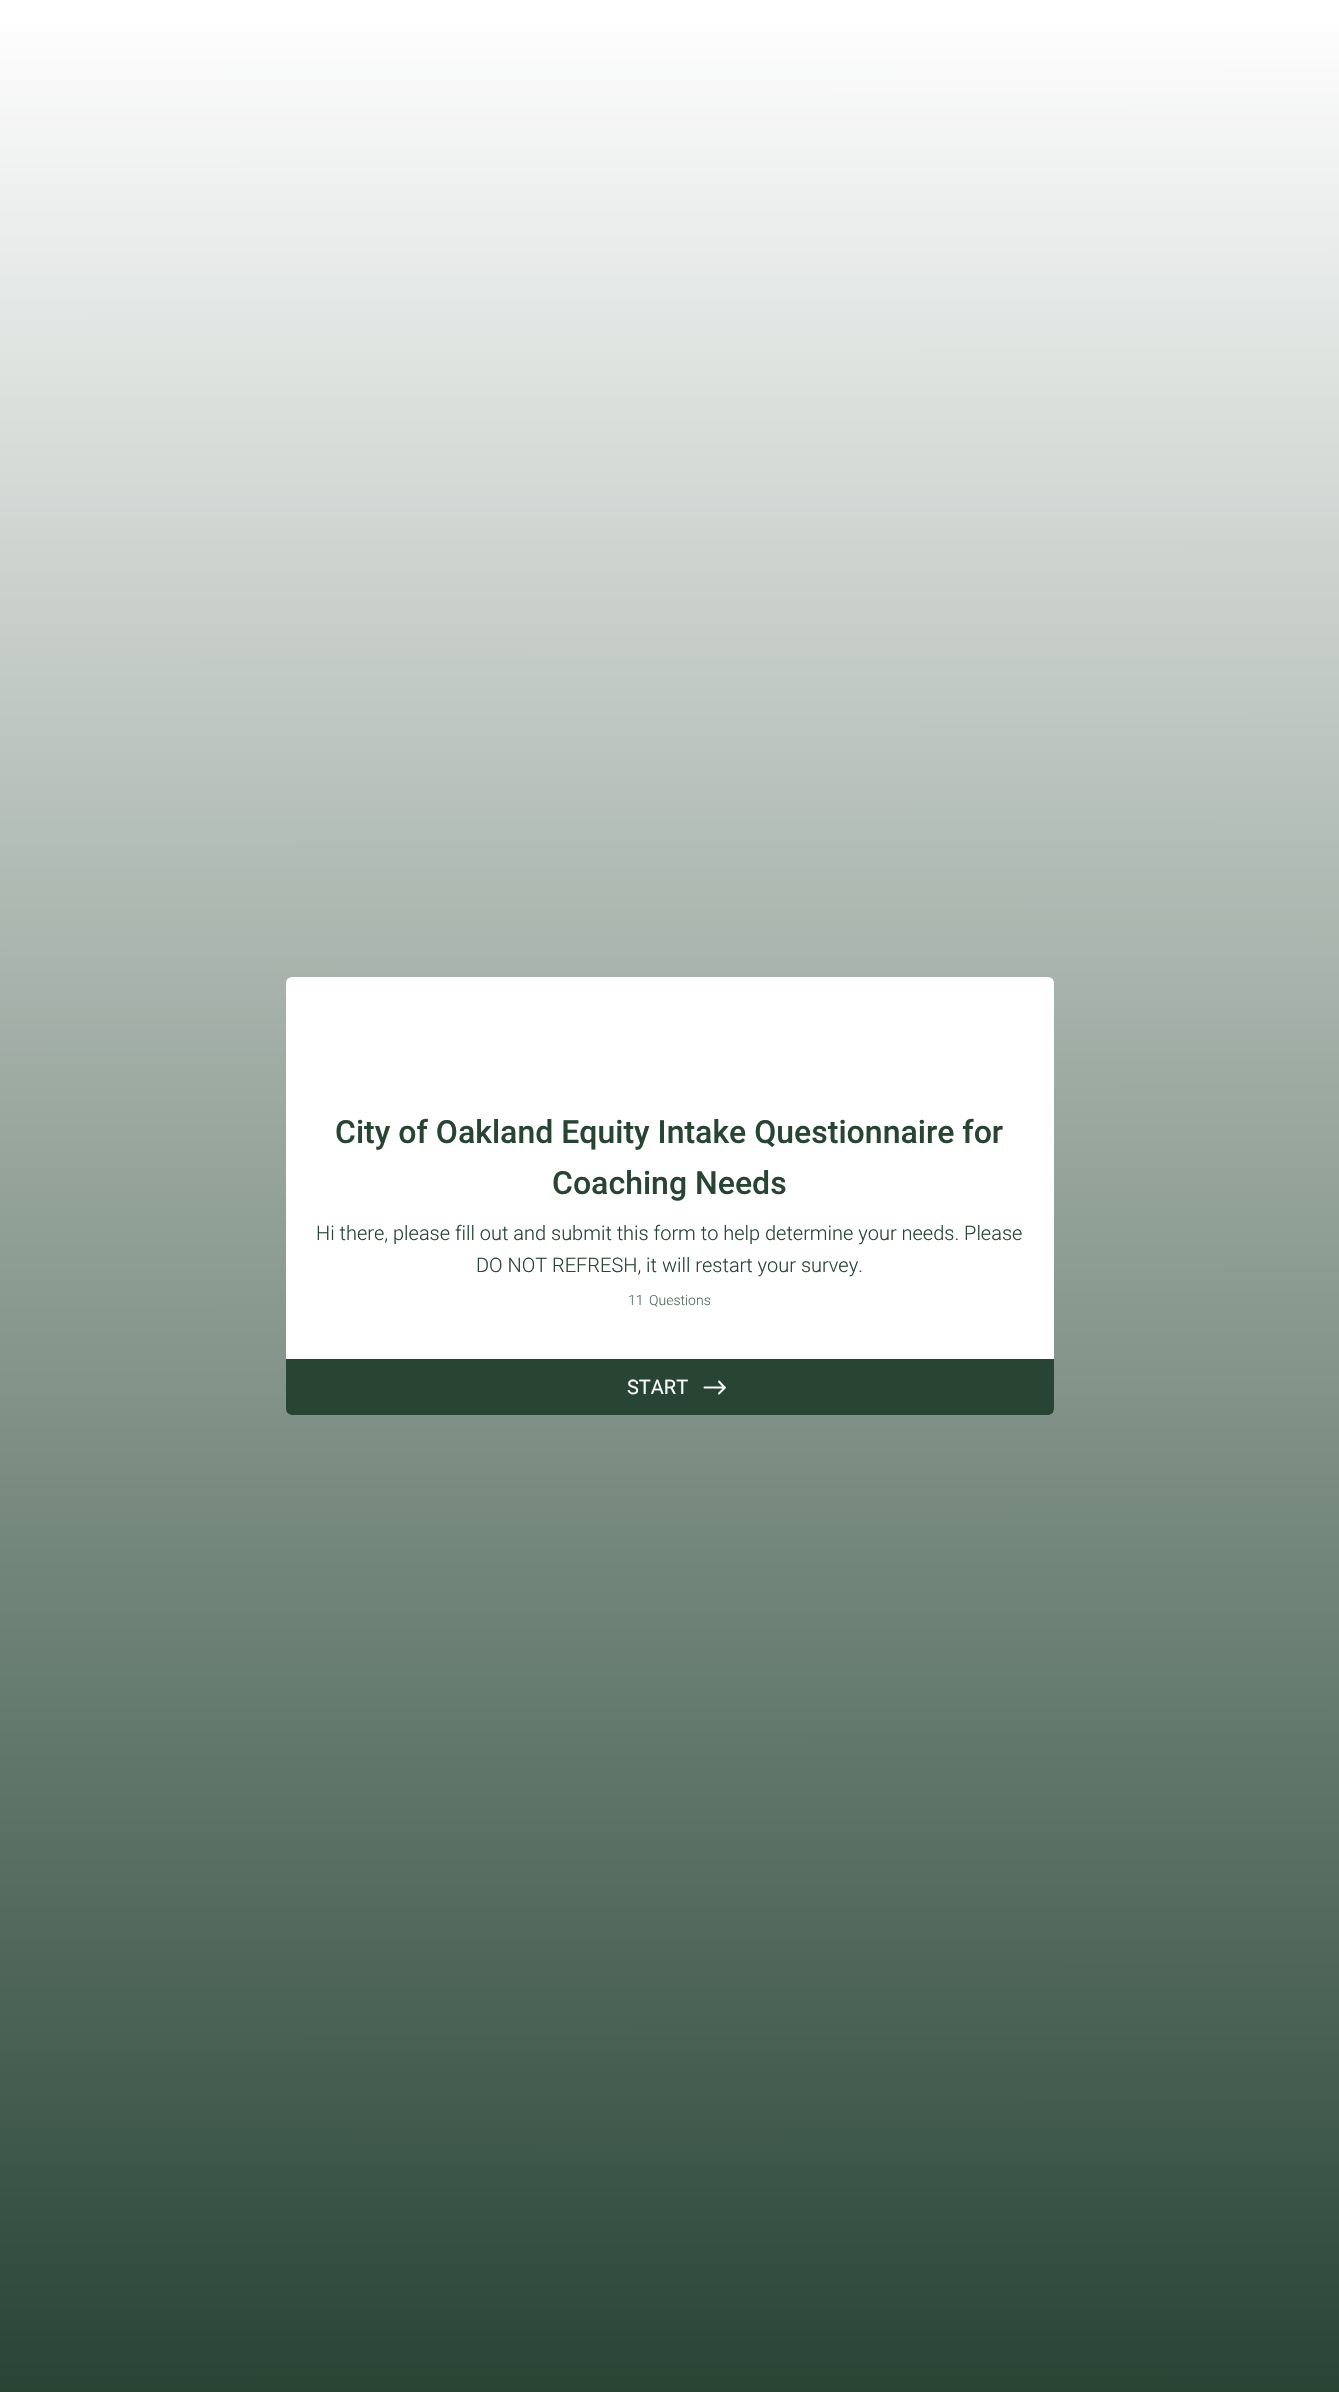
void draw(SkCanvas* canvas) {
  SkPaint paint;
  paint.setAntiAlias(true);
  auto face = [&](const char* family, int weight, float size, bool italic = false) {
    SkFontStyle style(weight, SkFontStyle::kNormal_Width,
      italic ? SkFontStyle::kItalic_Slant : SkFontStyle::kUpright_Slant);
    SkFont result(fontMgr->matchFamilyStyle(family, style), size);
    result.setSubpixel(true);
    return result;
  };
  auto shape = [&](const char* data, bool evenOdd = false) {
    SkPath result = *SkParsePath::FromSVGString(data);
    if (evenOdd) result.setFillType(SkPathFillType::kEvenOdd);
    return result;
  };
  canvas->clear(0xffffffff);
  {
    const SkColor colors[] = {0xffffffff, 0xff284534};
    const float stops[] = {0, 1};
    const SkPoint ends[] = {{669, 0}, {670, 2392}};
    paint.setShader(SkGradientShader::MakeLinear(ends, colors, stops, 2, SkTileMode::kClamp));
    paint.setAlpha(255);
  }
  canvas->drawRect(SkRect::MakeXYWH(0, 28, 1339, 2364), paint);
  paint.setShader(nullptr);
  paint.setColor(0xffffffff);
  canvas->drawRoundRect(SkRect::MakeXYWH(286, 977, 768, 438), 6, 6, paint);
  paint.setColor(0xff284534);
  canvas->drawPath(shape("M286 1359H1054V1409C1054 1412.5 1051.5 1415 1048 1415H292C288.5 1415 286 1412.5 286 1409Z"), paint);
  paint.setStroke(true);
  paint.setStrokeWidth(1.9f);
  paint.setStrokeCap(SkPaint::kRound_Cap);
  paint.setStrokeJoin(SkPaint::kRound_Join);
  paint.setColor(0xffffffff);
  canvas->drawPath(shape("M704.5 1387.5H725L719 1393.5M719 1381.5L724.5 1387.5L722 1390.5"), paint);
  auto f0 = face("Roboto", 500, 32);
  paint.setStroke(false);
  paint.setColor(0xff284534);
  canvas->drawString("City of Oakland Equity Intake Questionnaire for", 335, 1143, f0, paint);
  canvas->drawString("Coaching Needs", 552, 1194, f0, paint);
  auto f1 = face("Roboto", 300, 20);
  canvas->drawString("Hi there, please fill out and submit this form to help determine your needs. Please", 316, 1240, f1, paint);
  canvas->drawString("DO NOT REFRESH, it will restart your survey.", 476, 1272, f1, paint);
  auto f2 = face("Roboto", 300, 14);
  paint.setColor(0xff536a5d);
  canvas->drawString("11", 628, 1305, f2, paint);
  canvas->drawString("Questions", 649, 1305, f2, paint);
  auto f3 = face("Roboto", 400, 20);
  paint.setColor(0xffffffff);
  canvas->drawString("START", 627, 1394, f3, paint);
}
